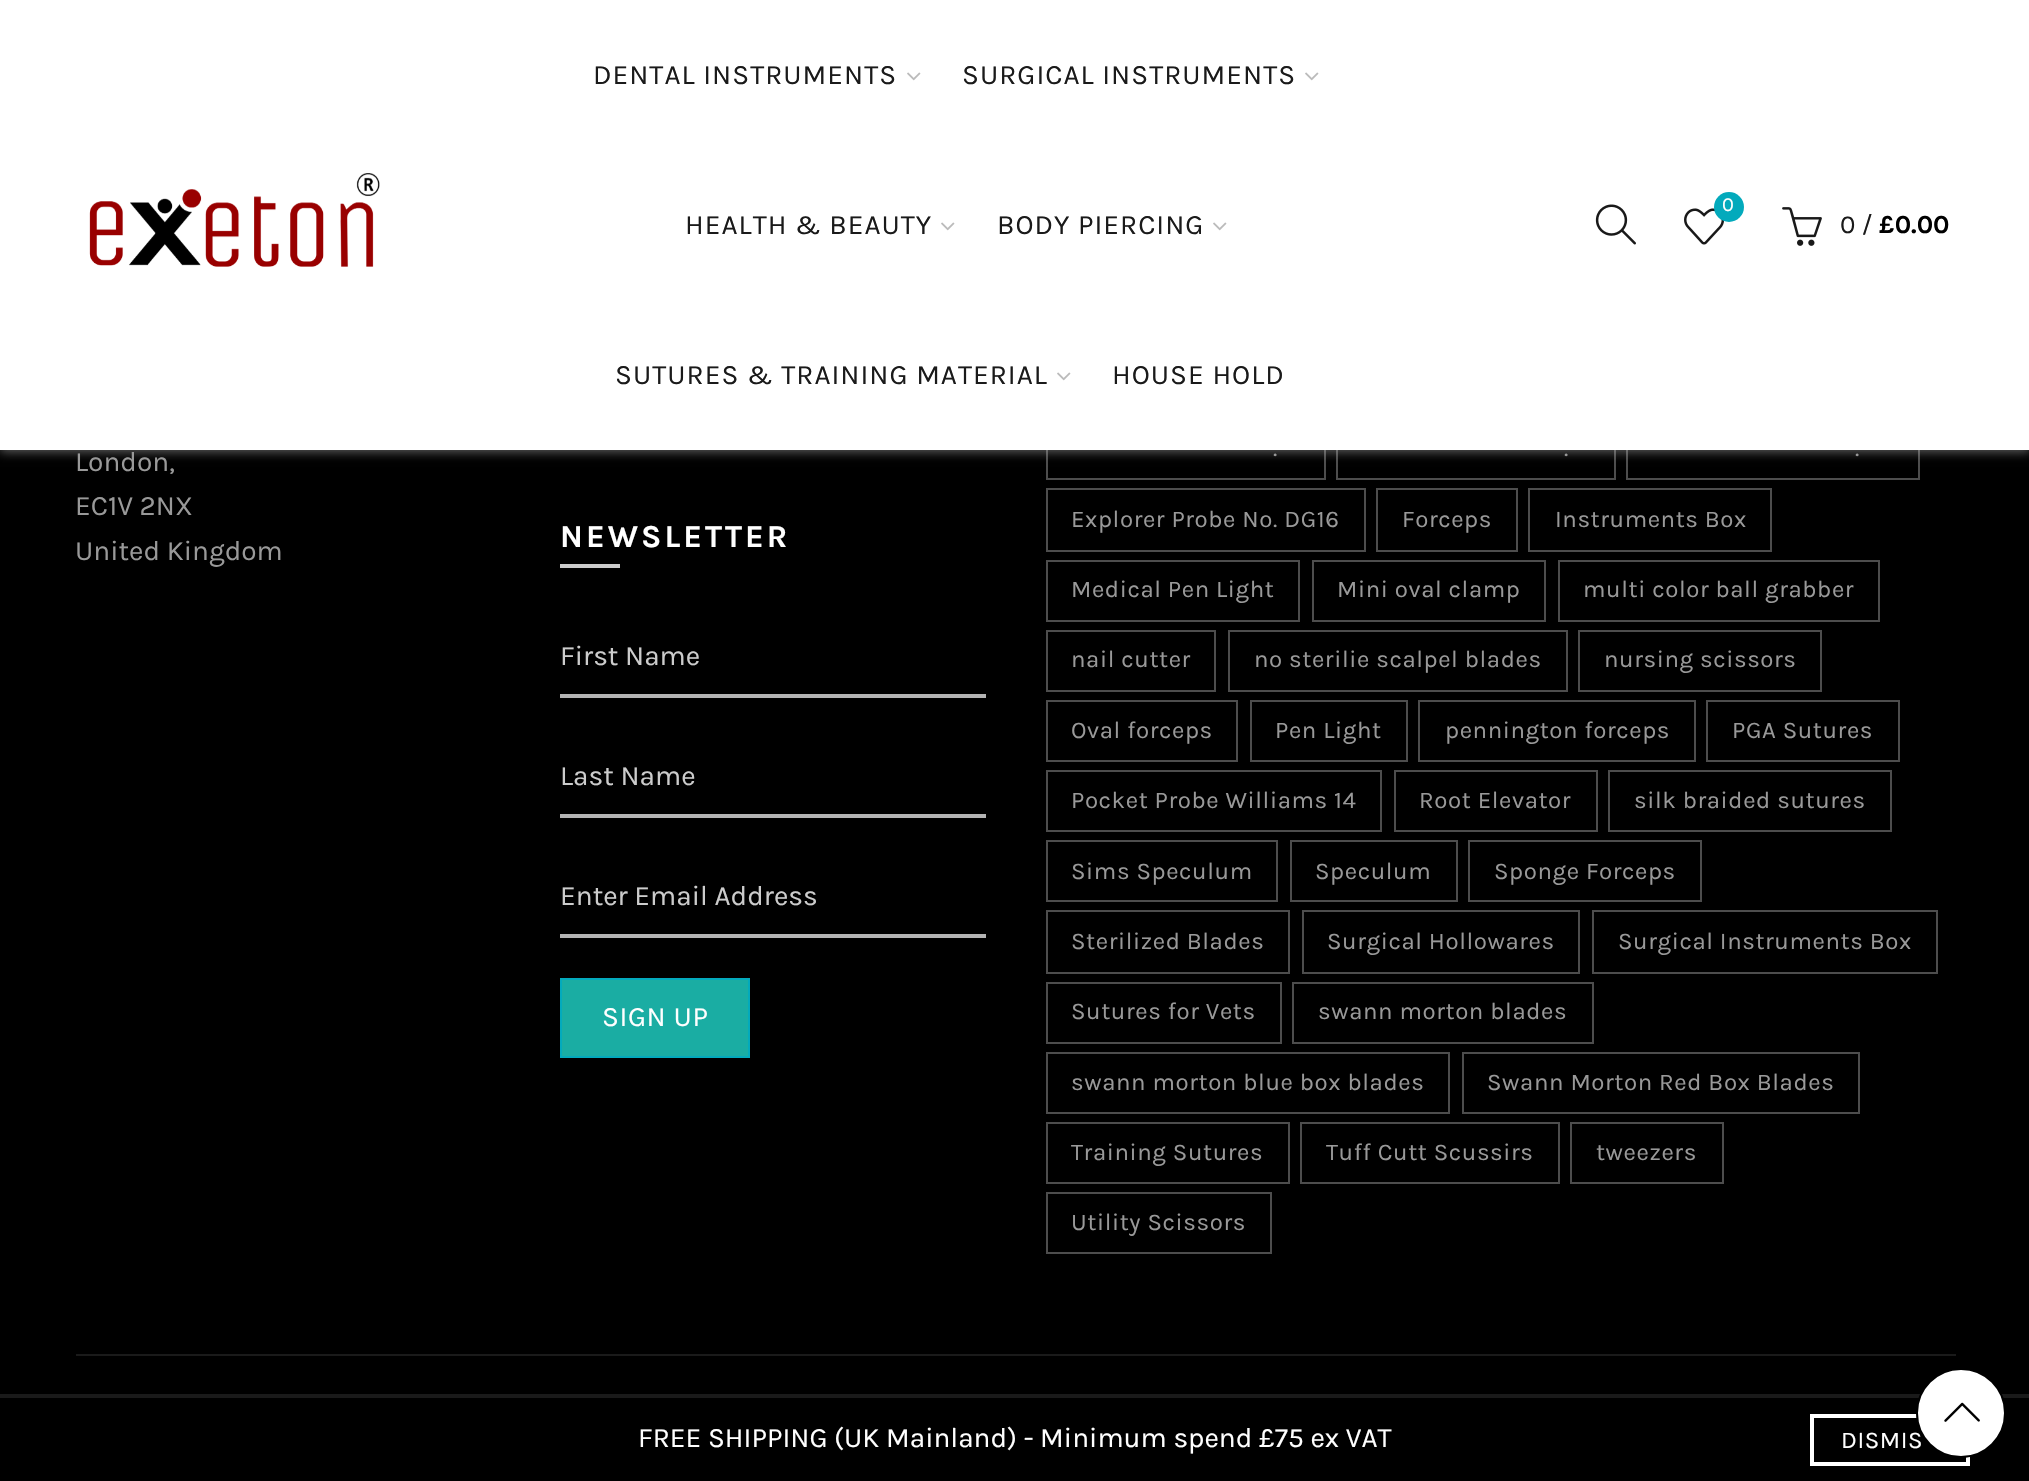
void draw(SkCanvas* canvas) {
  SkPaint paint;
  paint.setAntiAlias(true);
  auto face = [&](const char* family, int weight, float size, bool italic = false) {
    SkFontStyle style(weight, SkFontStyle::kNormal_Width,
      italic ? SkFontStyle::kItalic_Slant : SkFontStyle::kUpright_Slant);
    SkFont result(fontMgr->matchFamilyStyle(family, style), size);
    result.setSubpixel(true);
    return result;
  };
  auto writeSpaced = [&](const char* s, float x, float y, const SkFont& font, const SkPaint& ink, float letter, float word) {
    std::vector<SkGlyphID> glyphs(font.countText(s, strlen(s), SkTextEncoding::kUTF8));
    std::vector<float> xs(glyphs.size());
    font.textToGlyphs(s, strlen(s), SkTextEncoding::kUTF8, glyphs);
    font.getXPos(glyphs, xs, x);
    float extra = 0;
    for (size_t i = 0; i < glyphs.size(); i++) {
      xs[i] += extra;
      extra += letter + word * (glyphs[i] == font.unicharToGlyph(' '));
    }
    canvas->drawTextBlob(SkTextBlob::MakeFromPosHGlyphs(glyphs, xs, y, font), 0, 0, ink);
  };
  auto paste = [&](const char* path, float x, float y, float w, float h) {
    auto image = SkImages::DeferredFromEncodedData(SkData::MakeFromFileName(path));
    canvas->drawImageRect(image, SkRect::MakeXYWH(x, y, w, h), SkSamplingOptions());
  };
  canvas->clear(0xff000000);
  paint.setStroke(true);
  paint.setStrokeWidth(2);
  paint.setColor(0xff4d4d4d);
  canvas->drawRect(SkRect::MakeXYWH(1047, 419, 278, 60), paint);
  canvas->drawRect(SkRect::MakeXYWH(1337, 419, 278, 60), paint);
  canvas->drawRect(SkRect::MakeXYWH(1627, 419, 292, 60), paint);
  paint.setStroke(false);
  paint.setColor(0x80bebebe);
  paint.setMaskFilter(SkMaskFilter::MakeBlur(kNormal_SkBlurStyle, 5));
  canvas->drawRect(SkRect::MakeXYWH(0, 2, 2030, 450), paint);
  paint.setMaskFilter(nullptr);
  paint.setColor(0xffffffff);
  canvas->drawRect(SkRect::MakeXYWH(0, 0, 2029, 450), paint);
  paste("img/1.png", 89, 173, 291, 94);
  paste("img/2.png", 907, 72, 14, 9);
  paste("img/2.png", 1305, 72, 14, 9);
  paste("img/2.png", 941, 222, 14, 9);
  paste("img/2.png", 1213, 222, 14, 9);
  paste("img/2.png", 1057, 372, 14, 9);
  paste("img/3.png", 1595, 204, 41, 41);
  paste("img/4.png", 1684, 208, 40, 37);
  paint.setColor(0xff03aabc);
  canvas->drawCircle(1729, 207, 15, paint);
  paste("img/5.png", 1782, 207, 40, 39);
  {
    const struct { float x, y, w, h; SkColor color; } items[] = {
      {560, 564, 60, 4, 0xffcccccc},
      {560, 694, 426, 4, 0xffb3b3b3},
      {560, 814, 426, 4, 0xffb3b3b3},
      {560, 934, 426, 4, 0xffb3b3b3},
    };
    for (auto [x, y, w, h, color] : items) {
      paint.setColor(color);
      canvas->drawRect(SkRect::MakeXYWH(x, y, w, h), paint);
    }
  }
  paint.setColor(0xff1aada3);
  canvas->drawRect(SkRect::MakeXYWH(561, 979, 188, 78), paint);
  paint.setStroke(true);
  paint.setColor(0xff03aabc);
  canvas->drawRect(SkRect::MakeXYWH(561, 979, 188, 78), paint);
  paint.setColor(0xff4d4d4d);
  canvas->drawRect(SkRect::MakeXYWH(1047, 489, 318, 62), paint);
  canvas->drawRect(SkRect::MakeXYWH(1377, 489, 140, 62), paint);
  canvas->drawRect(SkRect::MakeXYWH(1529, 489, 242, 62), paint);
  canvas->drawRect(SkRect::MakeXYWH(1047, 561, 252, 60), paint);
  canvas->drawRect(SkRect::MakeXYWH(1313, 561, 232, 60), paint);
  canvas->drawRect(SkRect::MakeXYWH(1559, 561, 320, 60), paint);
  canvas->drawRect(SkRect::MakeXYWH(1047, 631, 168, 60), paint);
  canvas->drawRect(SkRect::MakeXYWH(1229, 631, 338, 60), paint);
  canvas->drawRect(SkRect::MakeXYWH(1579, 631, 242, 60), paint);
  canvas->drawRect(SkRect::MakeXYWH(1047, 701, 190, 60), paint);
  canvas->drawRect(SkRect::MakeXYWH(1251, 701, 156, 60), paint);
  canvas->drawRect(SkRect::MakeXYWH(1419, 701, 276, 60), paint);
  canvas->drawRect(SkRect::MakeXYWH(1707, 701, 192, 60), paint);
  canvas->drawRect(SkRect::MakeXYWH(1047, 771, 334, 60), paint);
  canvas->drawRect(SkRect::MakeXYWH(1395, 771, 202, 60), paint);
  canvas->drawRect(SkRect::MakeXYWH(1609, 771, 282, 60), paint);
  canvas->drawRect(SkRect::MakeXYWH(1047, 841, 230, 60), paint);
  canvas->drawRect(SkRect::MakeXYWH(1291, 841, 166, 60), paint);
  canvas->drawRect(SkRect::MakeXYWH(1469, 841, 232, 60), paint);
  canvas->drawRect(SkRect::MakeXYWH(1047, 911, 242, 62), paint);
  canvas->drawRect(SkRect::MakeXYWH(1303, 911, 276, 62), paint);
  canvas->drawRect(SkRect::MakeXYWH(1593, 911, 344, 62), paint);
  canvas->drawRect(SkRect::MakeXYWH(1047, 983, 234, 60), paint);
  canvas->drawRect(SkRect::MakeXYWH(1293, 983, 300, 60), paint);
  canvas->drawRect(SkRect::MakeXYWH(1047, 1053, 402, 60), paint);
  canvas->drawRect(SkRect::MakeXYWH(1463, 1053, 396, 60), paint);
  canvas->drawRect(SkRect::MakeXYWH(1047, 1123, 242, 60), paint);
  canvas->drawRect(SkRect::MakeXYWH(1301, 1123, 258, 60), paint);
  canvas->drawRect(SkRect::MakeXYWH(1571, 1123, 152, 60), paint);
  canvas->drawRect(SkRect::MakeXYWH(1047, 1193, 224, 60), paint);
  paint.setStroke(false);
  paint.setColor(0xff1a1a1a);
  canvas->drawRect(SkRect::MakeXYWH(76, 1354, 1880, 2), paint);
  canvas->drawRect(SkRect::MakeXYWH(0, 1394, 2029, 4), paint);
  paint.setStroke(true);
  paint.setStrokeWidth(4);
  paint.setColor(0xffffffff);
  canvas->drawRect(SkRect::MakeXYWH(1812, 1416, 156, 48), paint);
  paint.setStroke(false);
  canvas->drawCircle(1961, 1413, 44, paint);
  paint.setStroke(true);
  paint.setStrokeWidth(2);
  paint.setColor(0xff000000);
  canvas->drawCircle(1961, 1413, 44, paint);
  paste("img/6.png", 1944, 1402, 36, 20);
  auto f0 = face("Karla", 400, 28);
  paint.setStroke(false);
  paint.setColor(0xff1a1a1a);
  {
    const struct { const char* s; float x, y; } items[] = {
      {"DENTAL INSTRUMENTS", 593, 84},
      {"SURGICAL INSTRUMENTS", 962, 84},
      {"HEALTH & BEAUTY", 685, 234},
      {"BODY PIERCING", 997, 234},
      {"SUTURES & TRAINING MATERIAL", 615, 384},
      {"HOUSE HOLD", 1112, 384},
    };
    for (auto [s, x, y] : items) {
      writeSpaced(s, x, y, f0, paint, 1, 0);
    }
  }
  auto f1 = face("Karla", 400, 20);
  paint.setColor(0xffffffff);
  canvas->drawString("0", 1722, 211, f1, paint);
  auto f2 = face("Karla", 400, 26);
  paint.setColor(0xff1a1a1a);
  canvas->drawString("0 /", 1840, 233, f2, paint);
  auto f3 = face("Karla", 700, 26);
  paint.setColor(0xff000000);
  canvas->drawString("£0.00", 1879, 233, f3, paint);
  paint.setColor(0xff999999);
  {
    const struct { const char* s; float x, y; } items[] = {
      {"London,", 75, 471},
      {"EC1V 2NX", 75, 515},
      {"United Kingdom", 75, 560},
    };
    for (auto [s, x, y] : items) {
      canvas->drawString(s, x, y, f0, paint);
    }
  }
  auto f4 = face("Karla", 700, 32);
  paint.setColor(0xffffffff);
  writeSpaced("NEWSLETTER", 560, 547, f4, paint, 3, 0);
  paint.setColor(0xffcccccc);
  {
    const struct { const char* s; float x, y; } items[] = {
      {"First Name", 560, 665},
      {"Last Name", 560, 785},
      {"Enter Email Address", 560, 905},
    };
    for (auto [s, x, y] : items) {
      canvas->drawString(s, x, y, f0, paint);
    }
  }
  paint.setColor(0xffffffff);
  writeSpaced("SIGN UP", 602, 1026, f0, paint, 0.6f, 0);
  auto f5 = face("Karla", 400, 24);
  paint.setColor(0xff999999);
  {
    const struct { const char* s; float x, y; } items[] = {
      {".", 1273, 456},
      {".", 1564, 456},
      {".", 1855, 456},
      {"Explorer Probe No. DG16", 1071, 527},
      {"Forceps", 1402, 527},
      {"Instruments Box", 1555, 527},
      {"Medical Pen Light", 1071, 597},
      {"Mini oval clamp", 1337, 597},
      {"multi color ball grabber", 1583, 597},
      {"nail cutter", 1071, 667},
      {"no sterilie scalpel blades", 1254, 667},
      {"nursing scissors", 1604, 667},
      {"Oval forceps", 1071, 738},
      {"Pen Light", 1275, 738},
      {"pennington forceps", 1445, 738},
      {"PGA Sutures", 1732, 738},
      {"Pocket Probe Williams 14", 1071, 808},
      {"Root Elevator", 1419, 808},
      {"silk braided sutures", 1634, 808},
      {"Sims Speculum", 1071, 879},
      {"Speculum", 1315, 879},
      {"Sponge Forceps", 1494, 879},
      {"Sterilized Blades", 1071, 949},
      {"Surgical Hollowares", 1327, 949},
      {"Surgical Instruments Box", 1618, 949},
      {"Sutures for Vets", 1071, 1019},
      {"swann morton blades", 1318, 1019},
      {"swann morton blue box blades", 1071, 1090},
      {"Swann Morton Red Box Blades", 1487, 1090},
      {"Training Sutures", 1071, 1160},
      {"Tuff Cutt Scussirs", 1326, 1160},
      {"tweezers", 1596, 1160},
      {"Utility Scissors", 1071, 1230},
    };
    for (auto [s, x, y] : items) {
      writeSpaced(s, x, y, f5, paint, 0.6f, 0);
    }
  }
  paint.setColor(0xffffffff);
  canvas->drawString("FREE SHIPPING (UK Mainland) - Minimum spend £75 ex VAT", 638, 1447, f0, paint);
  writeSpaced("DISMIS", 1841, 1448, f5, paint, 0.6f, 0);
}
